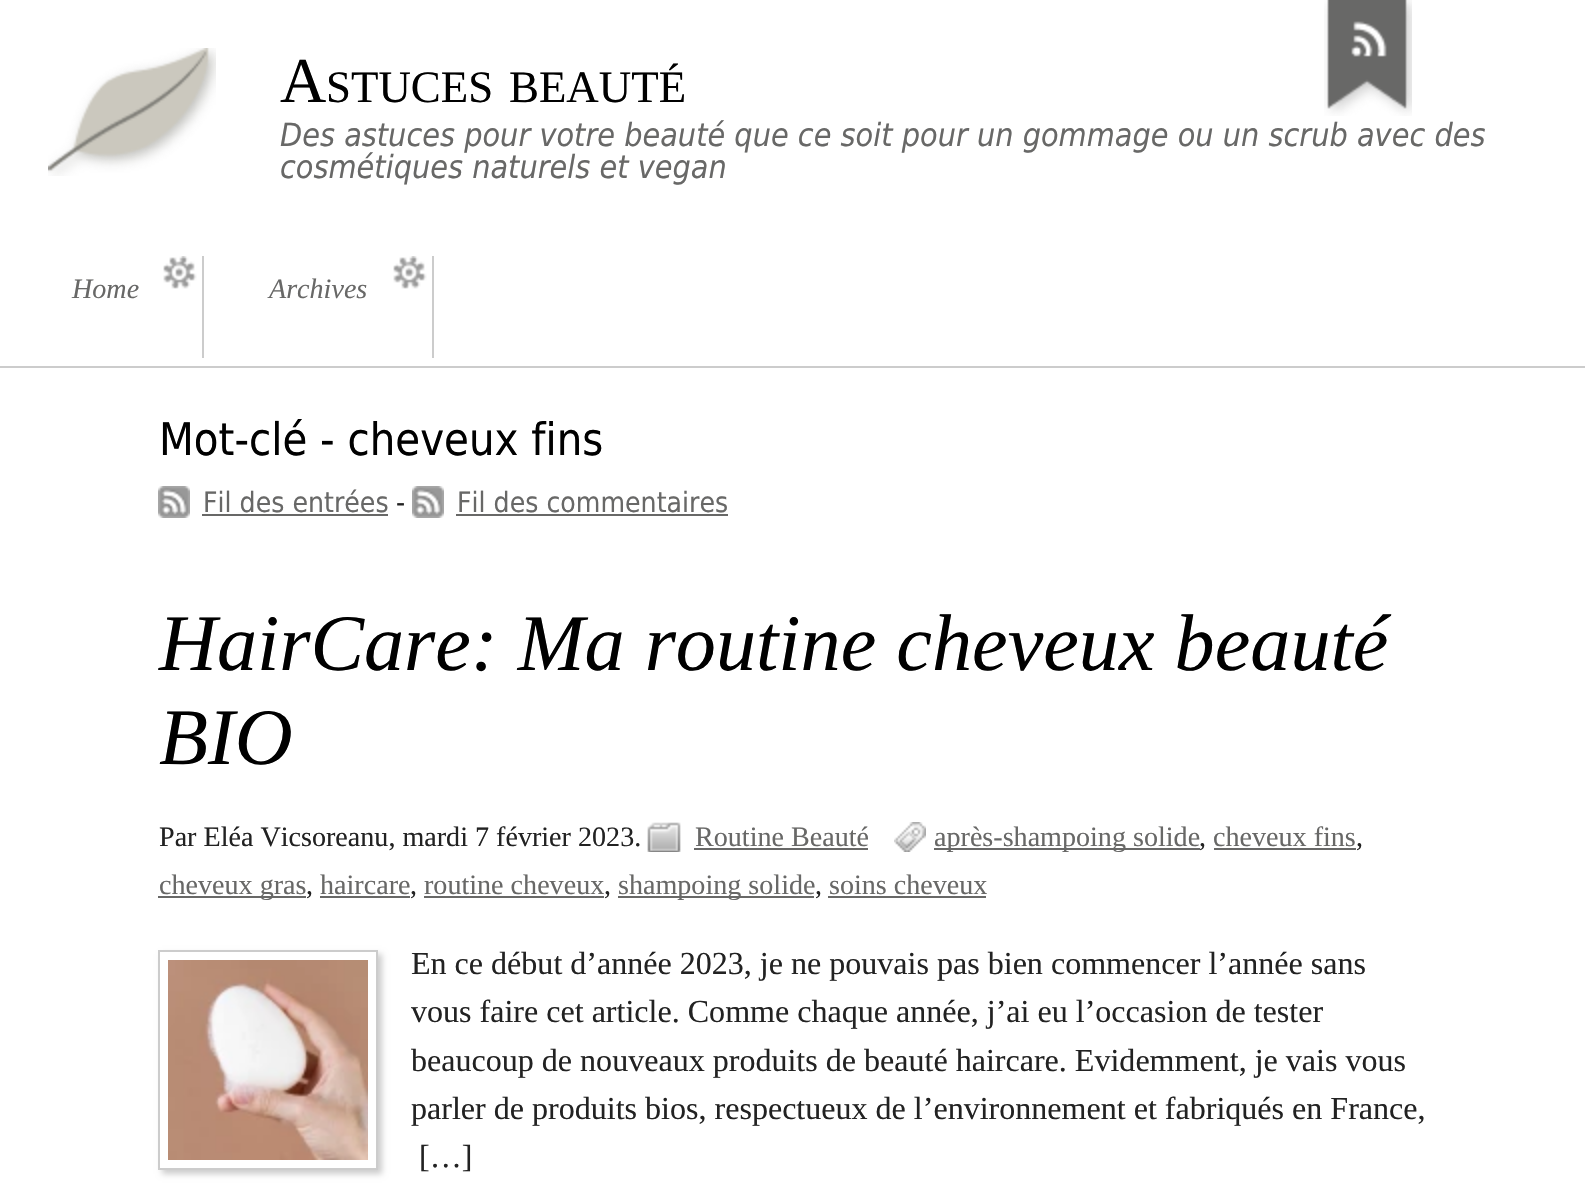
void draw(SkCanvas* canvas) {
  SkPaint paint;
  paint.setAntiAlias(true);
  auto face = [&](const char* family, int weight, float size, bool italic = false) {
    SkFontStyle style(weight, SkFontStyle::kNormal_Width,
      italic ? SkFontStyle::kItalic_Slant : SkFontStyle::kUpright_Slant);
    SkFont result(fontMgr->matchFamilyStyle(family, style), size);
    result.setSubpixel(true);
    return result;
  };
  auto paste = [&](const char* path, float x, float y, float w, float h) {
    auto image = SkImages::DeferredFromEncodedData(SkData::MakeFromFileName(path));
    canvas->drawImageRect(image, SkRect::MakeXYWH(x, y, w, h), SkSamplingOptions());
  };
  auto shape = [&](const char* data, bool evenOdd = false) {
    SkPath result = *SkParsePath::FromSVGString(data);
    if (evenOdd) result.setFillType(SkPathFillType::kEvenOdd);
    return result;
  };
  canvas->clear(0xffffffff);
  paste("img/1.png", 1324, 0, 88, 116);
  paste("img/2.png", 48, 48, 168, 128);
  paint.setColor(0xffcccccc);
  canvas->drawRect(SkRect::MakeXYWH(0, 366, 1585, 2), paint);
  paste("img/3.png", 163, 256, 34, 33);
  canvas->drawRect(SkRect::MakeXYWH(202, 256, 2, 102), paint);
  paste("img/3.png", 393, 256, 34, 33);
  canvas->drawRect(SkRect::MakeXYWH(432, 256, 2, 102), paint);
  paste("img/4.png", 158, 486, 32, 32);
  paint.setColor(0xff686867);
  canvas->drawRect(SkRect::MakeXYWH(202, 514, 186, 2), paint);
  paste("img/4.png", 412, 486, 32, 32);
  canvas->drawRect(SkRect::MakeXYWH(456, 514, 272, 2), paint);
  paste("img/5.png", 647, 822, 34, 30);
  canvas->drawRect(SkRect::MakeXYWH(694, 848, 174, 2), paint);
  paste("img/6.png", 894, 822, 32, 30);
  {
    const struct { float x, y, w, h; SkColor color; } items[] = {
      {934, 848, 266, 2, 0xff686867},
      {1214, 848, 142, 2, 0xff686867},
      {158, 896, 148, 2, 0xff686867},
      {320, 896, 90, 2, 0xff686867},
      {424, 896, 180, 2, 0xff686867},
      {618, 896, 196, 2, 0xff686867},
      {828, 896, 158, 2, 0xff686867},
    };
    for (auto [x, y, w, h, color] : items) {
      paint.setColor(color);
      canvas->drawRect(SkRect::MakeXYWH(x, y, w, h), paint);
    }
  }
  canvas->save();
  canvas->clipPath(shape("M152 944H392V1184H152ZM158 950H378V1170H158Z", true), true);
  paint.setColor(0xffcccccc);
  paint.setMaskFilter(SkMaskFilter::MakeBlur(kNormal_SkBlurStyle, 3));
  canvas->drawRect(SkRect::MakeXYWH(162, 954, 220, 220), paint);
  paint.setMaskFilter(nullptr);
  canvas->restore();
  paint.setStroke(true);
  paint.setStrokeWidth(2);
  canvas->drawRect(SkRect::MakeXYWH(159, 951, 218, 218), paint);
  paste("img/7.png", 168, 960, 200, 200);
  auto f0 = face("Liberation Serif", 400, 64);
  paint.setStroke(false);
  paint.setColor(0xff000000);
  canvas->drawString("A", 280, 102, f0, paint);
  auto f1 = face("Liberation Serif", 400, 44.9f);
  canvas->drawString("STUCES", 326, 102, f1, paint);
  canvas->drawString("BEAUTÉ", 509, 102, f1, paint);
  auto f2 = face("DejaVu Sans", 400, 32.05f, true);
  paint.setColor(0xff686867);
  canvas->drawString("Des astuces pour votre beauté que ce soit pour un gommage ou un scrub avec des", 280, 146, f2, paint);
  canvas->drawString("cosmétiques naturels et vegan", 280, 178, f2, paint);
  auto f3 = face("Liberation Serif", 400, 28.1f, true);
  canvas->drawString("Home", 72, 298, f3, paint);
  canvas->drawString("Archives", 269, 298, f3, paint);
  auto f4 = face("DejaVu Sans", 400, 44.9f);
  paint.setColor(0xff000000);
  canvas->drawString("Mot-clé - cheveux fins", 159, 455, f4, paint);
  auto f5 = face("DejaVu Sans", 400, 28.1f);
  paint.setColor(0xff686867);
  canvas->drawString("Fil des entrées", 203, 512, f5, paint);
  paint.setColor(0xff222222);
  canvas->drawString("-", 396, 512, f5, paint);
  paint.setColor(0xff686867);
  canvas->drawString("Fil des commentaires", 457, 512, f5, paint);
  auto f6 = face("Liberation Serif", 400, 80.2f, true);
  paint.setColor(0xff000000);
  canvas->drawString("HairCare: Ma routine cheveux beauté", 159, 670, f6, paint);
  canvas->drawString("BIO", 159, 764, f6, paint);
  auto f7 = face("Liberation Serif", 400, 28.1f);
  paint.setColor(0xff222222);
  canvas->drawString("Par Eléa Vicsoreanu, mardi 7 février 2023.", 159, 846, f7, paint);
  paint.setColor(0xff686867);
  canvas->drawString("Routine Beauté", 695, 846, f7, paint);
  canvas->drawString("après-shampoing solide", 934, 846, f7, paint);
  paint.setColor(0xff222222);
  canvas->drawString(",", 1199, 846, f7, paint);
  paint.setColor(0xff686867);
  canvas->drawString("cheveux fins", 1213, 846, f7, paint);
  paint.setColor(0xff222222);
  canvas->drawString(",", 1356, 846, f7, paint);
  paint.setColor(0xff686867);
  canvas->drawString("cheveux gras", 159, 894, f7, paint);
  paint.setColor(0xff222222);
  canvas->drawString(",", 306, 894, f7, paint);
  paint.setColor(0xff686867);
  canvas->drawString("haircare", 320, 894, f7, paint);
  paint.setColor(0xff222222);
  canvas->drawString(",", 410, 894, f7, paint);
  paint.setColor(0xff686867);
  canvas->drawString("routine cheveux", 424, 894, f7, paint);
  paint.setColor(0xff222222);
  canvas->drawString(",", 604, 894, f7, paint);
  paint.setColor(0xff686867);
  canvas->drawString("shampoing solide", 618, 894, f7, paint);
  paint.setColor(0xff222222);
  canvas->drawString(",", 815, 894, f7, paint);
  paint.setColor(0xff686867);
  canvas->drawString("soins cheveux", 829, 894, f7, paint);
  auto f8 = face("Liberation Serif", 400, 32.05f);
  paint.setColor(0xff222222);
  {
    const struct { const char* s; float x, y; } items[] = {
      {"En ce début d’année 2023, je ne pouvais pas bien commencer l’année sans", 411, 974},
      {"vous faire cet article. Comme chaque année, j’ai eu l’occasion de tester", 411, 1022},
      {"beaucoup de nouveaux produits de beauté haircare. Evidemment, je vais vous", 411, 1071},
      {"parler de produits bios, respectueux de l’environnement et fabriqués en France,", 411, 1119},
      {"[…]", 419, 1167},
    };
    for (auto [s, x, y] : items) {
      canvas->drawString(s, x, y, f8, paint);
    }
  }
}
